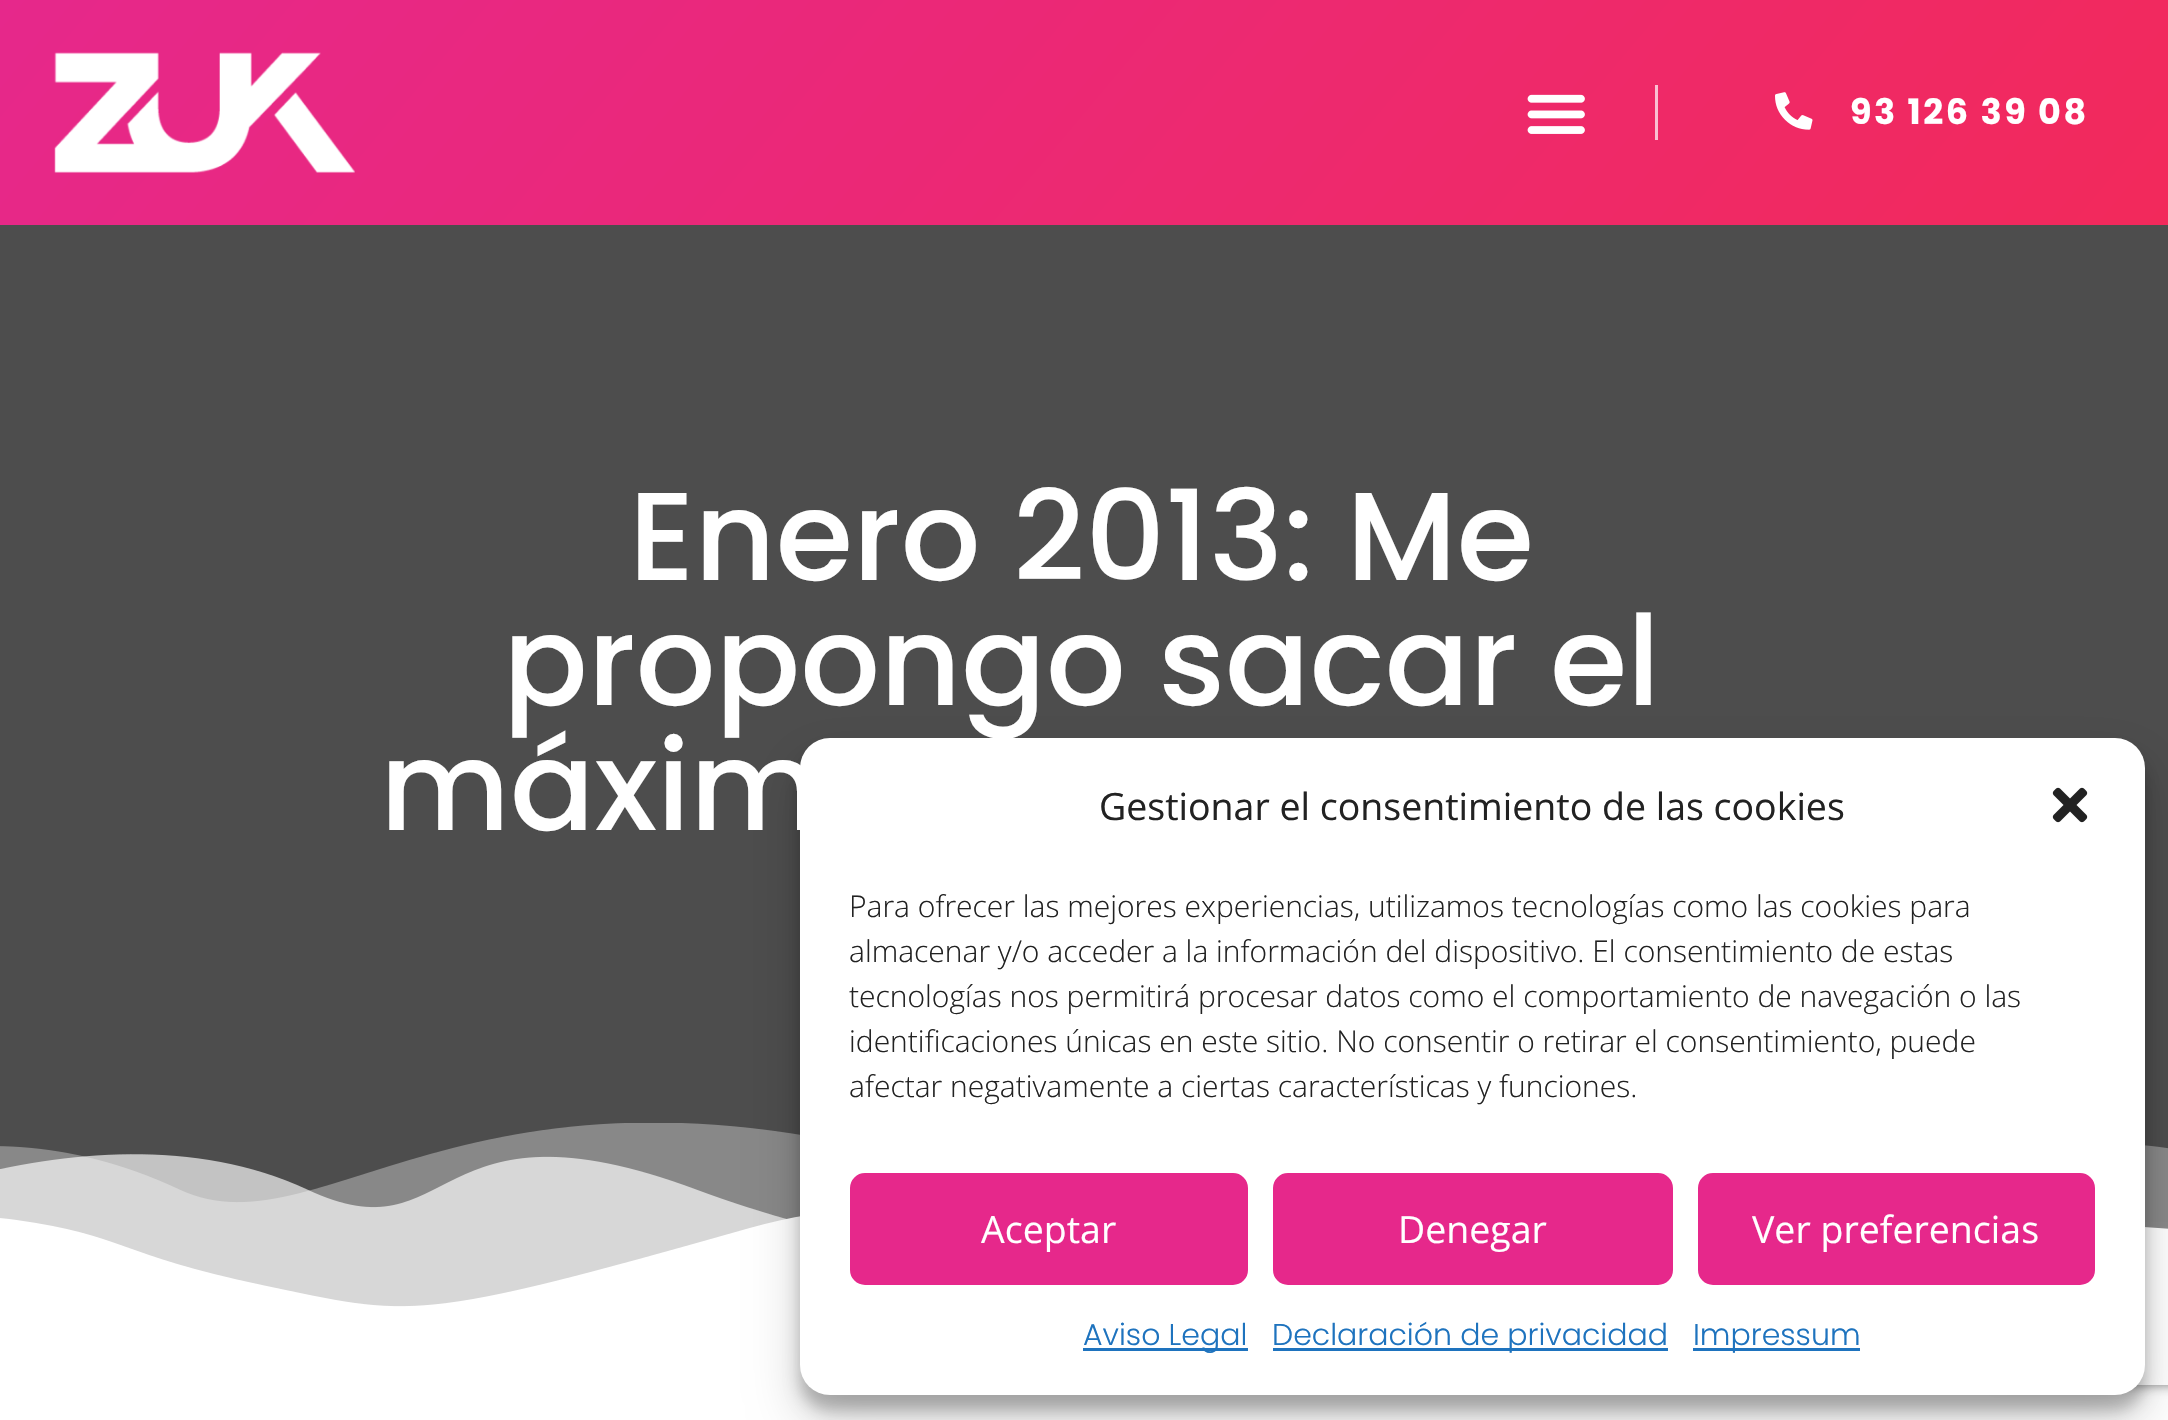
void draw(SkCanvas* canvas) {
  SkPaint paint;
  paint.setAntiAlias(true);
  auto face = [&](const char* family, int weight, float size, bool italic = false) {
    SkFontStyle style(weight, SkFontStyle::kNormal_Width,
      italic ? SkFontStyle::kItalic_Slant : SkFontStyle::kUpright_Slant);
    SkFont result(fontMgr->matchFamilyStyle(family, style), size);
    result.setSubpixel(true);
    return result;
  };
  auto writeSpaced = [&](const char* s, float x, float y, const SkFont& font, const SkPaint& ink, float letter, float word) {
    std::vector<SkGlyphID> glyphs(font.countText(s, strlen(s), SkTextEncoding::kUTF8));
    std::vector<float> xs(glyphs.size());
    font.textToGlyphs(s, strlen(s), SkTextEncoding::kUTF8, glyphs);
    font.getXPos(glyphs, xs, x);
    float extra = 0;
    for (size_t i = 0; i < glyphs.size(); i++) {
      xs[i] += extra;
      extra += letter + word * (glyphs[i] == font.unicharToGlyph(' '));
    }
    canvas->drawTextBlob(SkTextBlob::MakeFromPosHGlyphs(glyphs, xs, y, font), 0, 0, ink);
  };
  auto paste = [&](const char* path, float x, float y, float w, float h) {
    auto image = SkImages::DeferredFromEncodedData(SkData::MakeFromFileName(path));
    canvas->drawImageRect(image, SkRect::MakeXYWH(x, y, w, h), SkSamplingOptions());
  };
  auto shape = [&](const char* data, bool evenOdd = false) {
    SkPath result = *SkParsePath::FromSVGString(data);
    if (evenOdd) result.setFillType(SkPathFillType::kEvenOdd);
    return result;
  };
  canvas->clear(0xffffffff);
  {
    const SkColor colors[] = {0xffe6288b, 0xfff2295b};
    const float stops[] = {0, 1};
    const SkPoint ends[] = {{393, -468}, {1777, 693}};
    paint.setShader(SkGradientShader::MakeLinear(ends, colors, stops, 2, SkTileMode::kClamp));
    paint.setAlpha(255);
  }
  canvas->drawRect(SkRect::MakeXYWH(0, 0, 2168, 225), paint);
  paste("img/1.png", 54, 52, 301, 121);
  paste("img/2.png", 1527, 94, 58, 40);
  paint.setShader(nullptr);
  paint.setColor(0xfffabfd2);
  canvas->drawRect(SkRect::MakeXYWH(1655, 85, 3, 55), paint);
  paste("img/3.png", 1775, 92, 38, 38);
  paint.setColor(0xff4d4d4d);
  canvas->drawRect(SkRect::MakeXYWH(0, 225, 2168, 1082), paint);
  canvas->save();
  canvas->clipPath(shape("M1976 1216H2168V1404H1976ZM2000 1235H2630C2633 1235 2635 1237 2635 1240V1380C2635 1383 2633 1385 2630 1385H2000C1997 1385 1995 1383 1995 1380V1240C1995 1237 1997 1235 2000 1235Z", true), true);
  paint.setColor(0xff808080);
  paint.setMaskFilter(SkMaskFilter::MakeBlur(kNormal_SkBlurStyle, 6));
  canvas->drawRoundRect(SkRect::MakeXYWH(1995, 1235, 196, 150), 5, 5, paint);
  paint.setMaskFilter(nullptr);
  canvas->restore();
  paste("img/4.png", 0, 1123, 2168, 205);
  paint.setColor(0x3b000000);
  paint.setMaskFilter(SkMaskFilter::MakeBlur(kNormal_SkBlurStyle, 7.5f));
  canvas->drawRoundRect(SkRect::MakeXYWH(800, 753, 1345, 657), 30, 30, paint);
  paint.setMaskFilter(nullptr);
  paint.setColor(0x30000000);
  paint.setMaskFilter(SkMaskFilter::MakeBlur(kNormal_SkBlurStyle, 25));
  canvas->drawRoundRect(SkRect::MakeXYWH(800, 763, 1345, 657), 30, 30, paint);
  paint.setMaskFilter(nullptr);
  paint.setColor(0xffffffff);
  canvas->drawRoundRect(SkRect::MakeXYWH(800, 738, 1345, 657), 30, 30, paint);
  paste("img/5.png", 2052, 787, 36, 36);
  paint.setColor(0xffe6288b);
  canvas->drawRoundRect(SkRect::MakeXYWH(851.5f, 1174.5f, 395, 109), 13.5f, 13.5f, paint);
  paint.setStroke(true);
  paint.setStrokeWidth(3);
  canvas->drawRoundRect(SkRect::MakeXYWH(851.5f, 1174.5f, 395, 109), 13.5f, 13.5f, paint);
  paint.setStroke(false);
  canvas->drawRoundRect(SkRect::MakeXYWH(1274.5f, 1174.5f, 397, 109), 13.5f, 13.5f, paint);
  paint.setStroke(true);
  canvas->drawRoundRect(SkRect::MakeXYWH(1274.5f, 1174.5f, 397, 109), 13.5f, 13.5f, paint);
  paint.setStroke(false);
  canvas->drawRoundRect(SkRect::MakeXYWH(1699.5f, 1174.5f, 394, 109), 13.5f, 13.5f, paint);
  paint.setStroke(true);
  canvas->drawRoundRect(SkRect::MakeXYWH(1699.5f, 1174.5f, 394, 109), 13.5f, 13.5f, paint);
  paint.setStroke(false);
  {
    const struct { float x, y, w, h; SkColor color; } items[] = {
      {1083, 1348, 165, 3, 0xff1e73be},
      {1273, 1348, 395, 3, 0xff1e73be},
      {1693, 1348, 167, 3, 0xff1e73be},
    };
    for (auto [x, y, w, h, color] : items) {
      paint.setColor(color);
      canvas->drawRect(SkRect::MakeXYWH(x, y, w, h), paint);
    }
  }
  auto f0 = face("Poppins", 700, 35);
  paint.setColor(0xffffffff);
  writeSpaced("93 126 39 08", 1850, 124, f0, paint, 2.5f, 0);
  auto f1 = face("Poppins", 500, 125);
  {
    const struct { const char* s; float x, y; } items[] = {
      {"Enero 2013: Me", 629, 580},
      {"propongo sacar el", 503, 705},
      {"máxim", 380, 830},
    };
    for (auto [s, x, y] : items) {
      canvas->drawString(s, x, y, f1, paint);
    }
  }
  auto f2 = face("Open Sans", 400, 37.5f);
  paint.setColor(0xff222222);
  canvas->drawString("Gestionar el consentimiento de las cookies", 1099, 820, f2, paint);
  auto f3 = face("Open Sans", 300, 30);
  {
    const struct { const char* s; float x, y; } items[] = {
      {"Para ofrecer las mejores experiencias, utilizamos tecnologías como las cookies para", 849, 917},
      {"almacenar y/o acceder a la información del dispositivo. El consentimiento de estas", 849, 962},
      {"tecnologías nos permitirá procesar datos como el comportamiento de navegación o las", 849, 1007},
      {"identificaciones únicas en este sitio. No consentir o retirar el consentimiento, puede", 849, 1052},
      {"afectar negativamente a ciertas características y funciones.", 849, 1097},
    };
    for (auto [s, x, y] : items) {
      canvas->drawString(s, x, y, f3, paint);
    }
  }
  paint.setColor(0xffffffff);
  {
    const struct { const char* s; float x, y; } items[] = {
      {"Aceptar", 981, 1243},
      {"Denegar", 1398, 1243},
      {"Ver preferencias", 1752, 1243},
    };
    for (auto [s, x, y] : items) {
      canvas->drawString(s, x, y, f2, paint);
    }
  }
  auto f4 = face("Poppins", 300, 30);
  paint.setColor(0xff1e73be);
  {
    const struct { const char* s; float x, y; } items[] = {
      {"Aviso Legal", 1083, 1345},
      {"Declaración de privacidad", 1272, 1345},
      {"Impressum", 1693, 1345},
    };
    for (auto [s, x, y] : items) {
      canvas->drawString(s, x, y, f4, paint);
    }
  }
}
